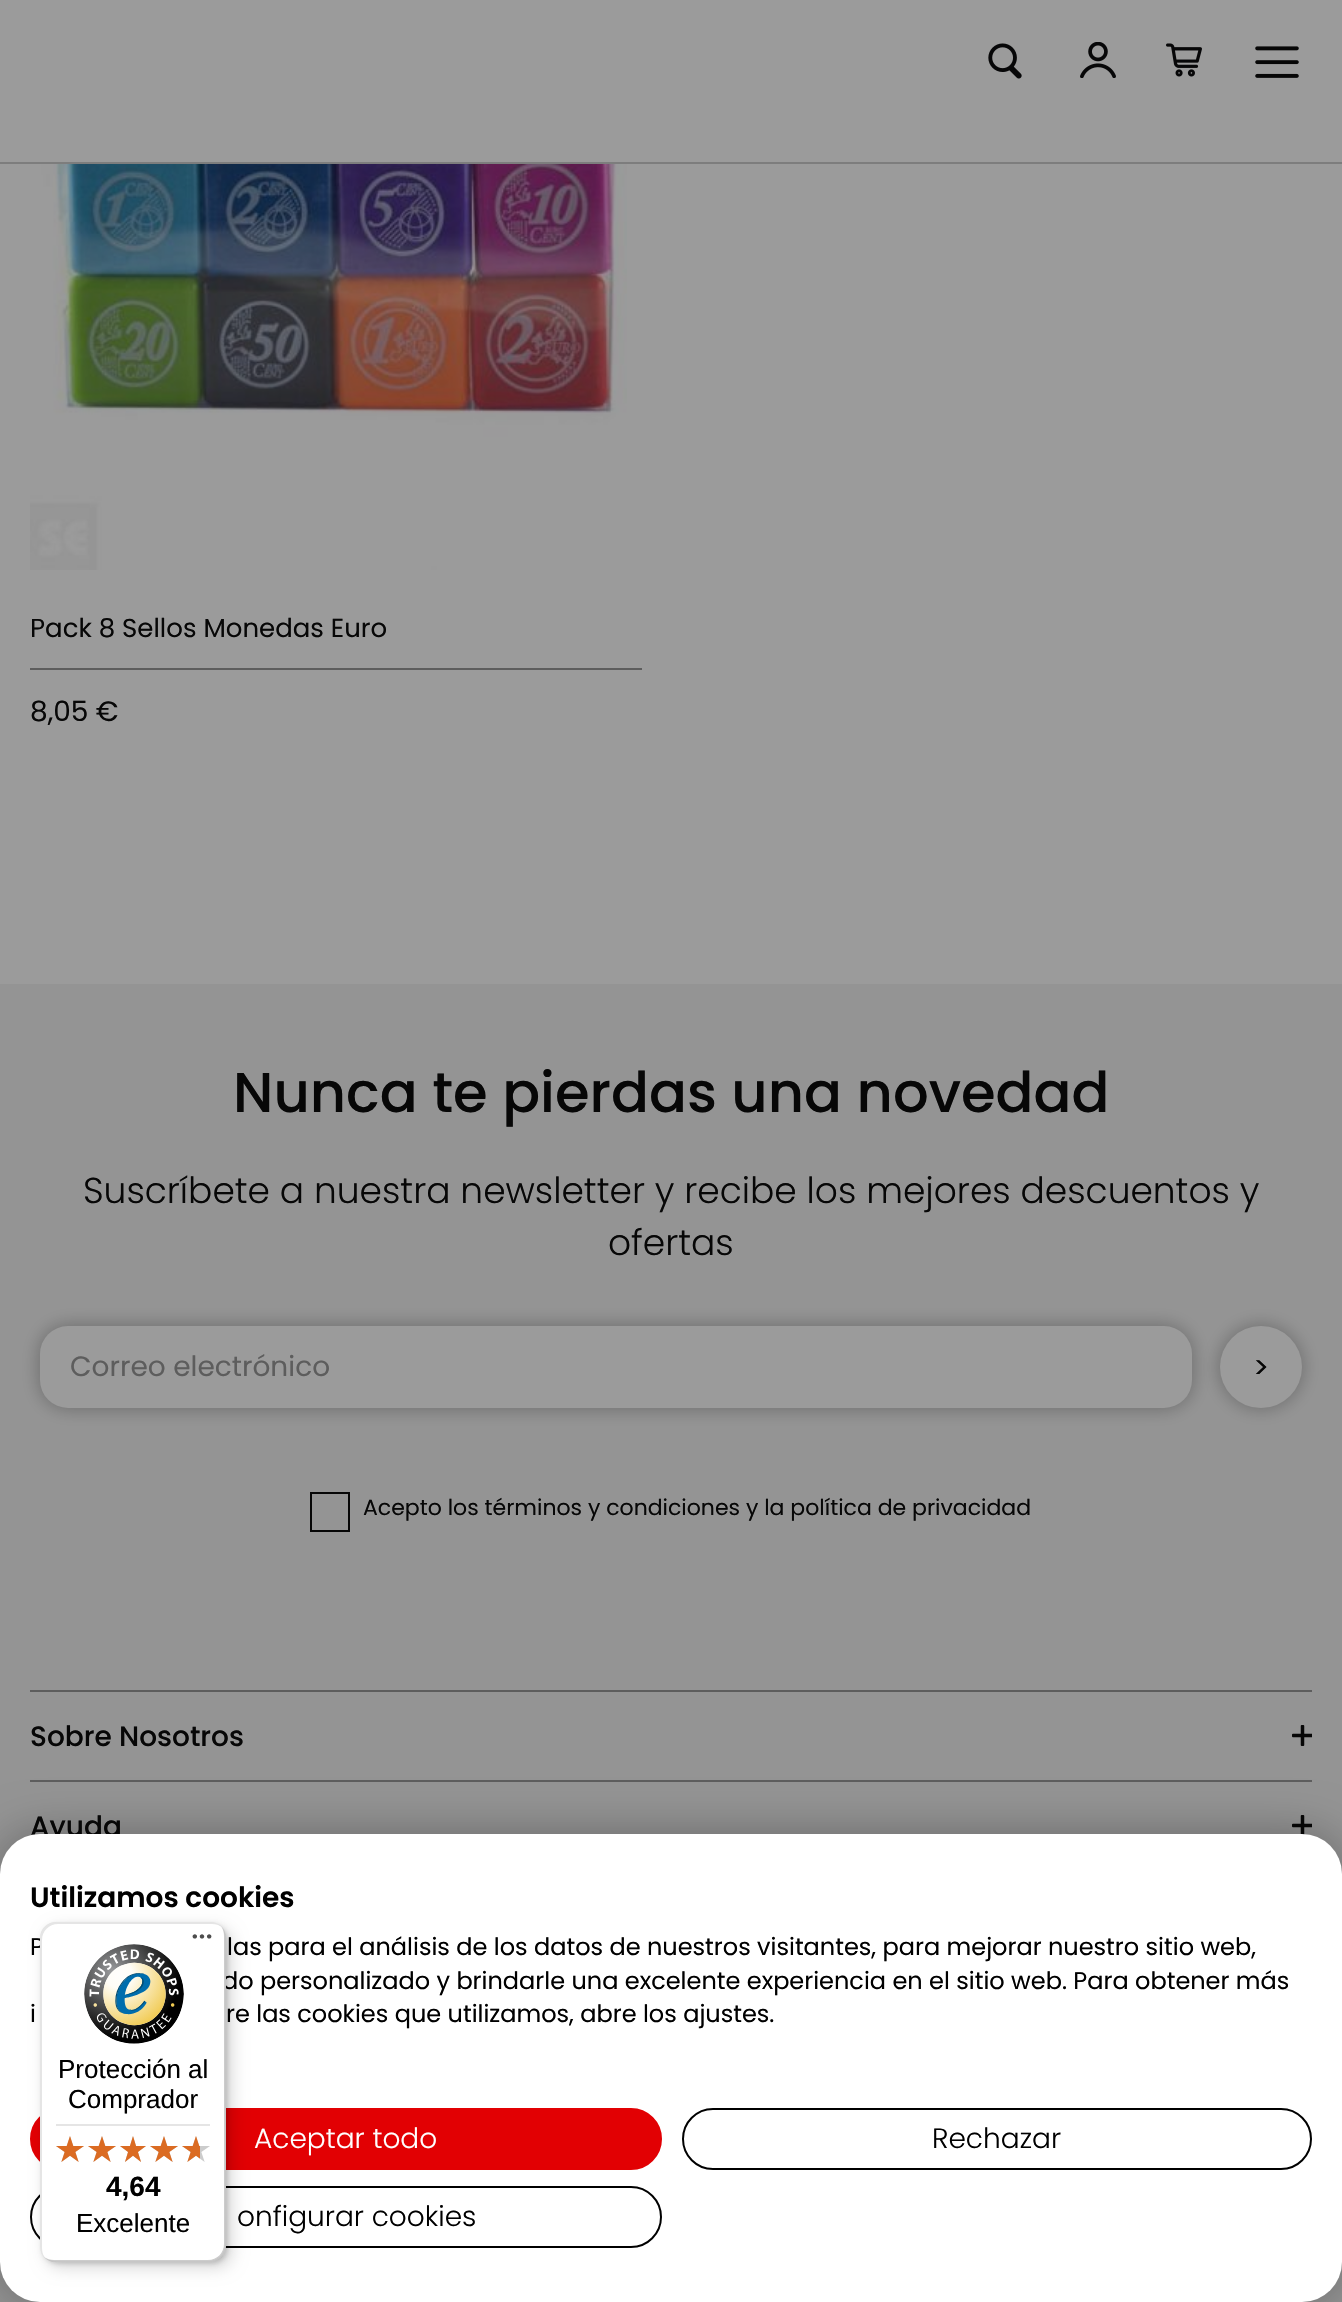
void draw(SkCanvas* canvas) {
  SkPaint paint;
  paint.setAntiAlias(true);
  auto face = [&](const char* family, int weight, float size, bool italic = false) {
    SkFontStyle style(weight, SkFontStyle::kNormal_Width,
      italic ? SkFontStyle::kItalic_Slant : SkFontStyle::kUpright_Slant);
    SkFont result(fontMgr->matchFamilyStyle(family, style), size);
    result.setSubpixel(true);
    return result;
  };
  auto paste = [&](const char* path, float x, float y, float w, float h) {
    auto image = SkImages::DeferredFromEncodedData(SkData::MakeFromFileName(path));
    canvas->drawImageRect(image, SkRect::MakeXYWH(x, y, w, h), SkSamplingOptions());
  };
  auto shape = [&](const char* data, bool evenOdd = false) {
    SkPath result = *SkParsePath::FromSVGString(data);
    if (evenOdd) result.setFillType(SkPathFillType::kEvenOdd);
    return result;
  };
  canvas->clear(0xff9b9b9b);
  paint.setColor(0xff7d7d7d);
  canvas->drawRect(SkRect::MakeXYWH(0, 162, 1342, 2), paint);
  paste("img/1.png", 988, 43, 34, 36);
  paste("img/2.png", 1080, 42, 36, 36);
  paste("img/3.png", 1166, 43, 36, 34);
  paste("img/4.png", 1255, 46, 44, 32);
  paste("img/5.png", 30, 164, 597, 406);
  paint.setColor(0xff5d5d5d);
  canvas->drawRect(SkRect::MakeXYWH(30, 668, 612, 2), paint);
  paint.setColor(0xff949494);
  canvas->drawRect(SkRect::MakeXYWH(0, 984, 1342, 1318), paint);
  paint.setColor(0x4d070707);
  paint.setMaskFilter(SkMaskFilter::MakeBlur(kNormal_SkBlurStyle, 10));
  canvas->drawRoundRect(SkRect::MakeXYWH(40, 1326, 1152, 82), 28, 28, paint);
  paint.setMaskFilter(nullptr);
  paint.setColor(0xff9b9b9b);
  canvas->drawRoundRect(SkRect::MakeXYWH(40, 1326, 1152, 82), 28, 28, paint);
  paint.setColor(0x4d070707);
  paint.setMaskFilter(SkMaskFilter::MakeBlur(kNormal_SkBlurStyle, 10));
  canvas->drawRoundRect(SkRect::MakeXYWH(1220, 1326, 82, 82), 41, 41, paint);
  paint.setMaskFilter(nullptr);
  paint.setColor(0xff9b9b9b);
  canvas->drawCircle(1261, 1367, 41, paint);
  paint.setStroke(true);
  paint.setStrokeWidth(2);
  paint.setColor(0xff070707);
  canvas->drawRect(SkRect::MakeXYWH(311, 1493, 38, 38), paint);
  paint.setStroke(false);
  paint.setColor(0xff5d5d5d);
  canvas->drawRect(SkRect::MakeXYWH(30, 1690, 1282, 2), paint);
  paste("img/6.png", 1292, 1725, 20, 21);
  canvas->drawRect(SkRect::MakeXYWH(30, 1780, 1282, 2), paint);
  paste("img/7.png", 1292, 1815, 20, 20);
  paint.setColor(0x4d000000);
  paint.setMaskFilter(SkMaskFilter::MakeBlur(kNormal_SkBlurStyle, 24));
  canvas->drawRoundRect(SkRect::MakeXYWH(0, 1834, 1342, 468), 40, 40, paint);
  paint.setMaskFilter(nullptr);
  auto f0 = face("Poppins", 400, 26);
  paint.setColor(0xff070707);
  canvas->drawString("Pack 8 Sellos Monedas Euro", 30, 637, f0, paint);
  auto f1 = face("Poppins", 400, 28);
  canvas->drawString("8,05 €", 30, 721, f1, paint);
  auto f2 = face("Poppins", 500, 56);
  canvas->drawString("Nunca te pierdas una novedad", 233, 1112, f2, paint);
  auto f3 = face("Poppins", 300, 36);
  canvas->drawString("Suscríbete a nuestra newsletter y recibe los mejores descuentos y", 83, 1203, f3, paint);
  canvas->drawString("ofertas", 608, 1255, f3, paint);
  paint.setColor(0xff5d5d5d);
  canvas->drawString("Correo electrónico", 70, 1376, f1, paint);
  auto f4 = face("Poppins", 400, 30);
  paint.setColor(0xff070707);
  canvas->drawString(">", 1253, 1378, f4, paint);
  auto f5 = face("Poppins", 400, 22);
  canvas->drawString("Acepto los términos y condiciones y la política de privacidad", 363, 1515, f5, paint);
  auto f6 = face("Poppins", 500, 28);
  canvas->drawString("Sobre Nosotros", 30, 1746, f6, paint);
  canvas->drawString("Ayuda", 30, 1836, f6, paint);
  paint.setColor(0xffffffff);
  canvas->drawRoundRect(SkRect::MakeXYWH(0, 1834, 1342, 468), 40, 40, paint);
  auto f7 = face("Poppins", 600, 28);
  paint.setColor(0xff000000);
  canvas->drawString("Utilizamos cookies", 30, 1907, f7, paint);
  auto f8 = face("Poppins", 400, 24);
  {
    const struct { const char* s; float x, y; } items[] = {
      {"P", 30, 1955},
      {"las para el análisis de los datos de nuestros visitantes, para mejorar nuestro sitio web,", 227, 1955},
      {"do personalizado y brindarle una excelente experiencia en el sitio web. Para obtener más", 222, 1989},
      {"i", 30, 2022},
      {"re las cookies que utilizamos, abre los ajustes.", 226, 2022},
    };
    for (auto [s, x, y] : items) {
      canvas->drawString(s, x, y, f8, paint);
    }
  }
  paint.setColor(0xffe20003);
  canvas->drawRoundRect(SkRect::MakeXYWH(31, 2109, 630, 60), 30, 30, paint);
  paint.setStroke(true);
  canvas->drawRoundRect(SkRect::MakeXYWH(31, 2109, 630, 60), 30, 30, paint);
  auto f9 = face("Poppins", 300, 28);
  paint.setStroke(false);
  paint.setColor(0xffffffff);
  canvas->drawString("Aceptar todo", 254, 2148, f9, paint);
  paint.setStroke(true);
  paint.setColor(0xff000000);
  canvas->drawRoundRect(SkRect::MakeXYWH(683, 2109, 628, 60), 30, 30, paint);
  paint.setStroke(false);
  canvas->drawString("Rechazar", 932, 2148, f9, paint);
  paint.setStroke(true);
  canvas->drawRoundRect(SkRect::MakeXYWH(31, 2187, 630, 60), 30, 30, paint);
  paint.setStroke(false);
  canvas->drawString("onfigurar cookies", 237, 2226, f9, paint);
  paint.setColor(0x26000000);
  paint.setMaskFilter(SkMaskFilter::MakeBlur(kNormal_SkBlurStyle, 8));
  canvas->drawRoundRect(SkRect::MakeXYWH(46, 1928, 186, 340), 16, 16, paint);
  paint.setMaskFilter(nullptr);
  paint.setMaskFilter(SkMaskFilter::MakeBlur(kNormal_SkBlurStyle, 2));
  canvas->drawRoundRect(SkRect::MakeXYWH(42, 1924, 186, 340), 16, 16, paint);
  paint.setMaskFilter(nullptr);
  paint.setColor(0xffffffff);
  canvas->drawRoundRect(SkRect::MakeXYWH(40, 1922, 186, 340), 16, 16, paint);
  paint.setColor(0x1a000000);
  canvas->drawPath(shape("M58 1924H212C216 1924 219 1925 222 1927C219 1924 215 1922 210 1922H56C47 1922 40 1929 40 1938V2246C40 2251 42 2255 45 2258C43 2255 42 2252 42 2248V1940C42 1931 49 1924 58 1924Z"), paint);
  paint.setColor(0x33000000);
  canvas->drawPath(shape("M44 2257C47 2260 51 2262 56 2262H210C219 2262 226 2255 226 2246V1938C226 1933 224 1929 221 1926C223 1929 224 1932 224 1936V2244C224 2253 217 2260 208 2260H54C50 2260 47 2259 44 2257Z"), paint);
  paint.setColor(0x33323232);
  canvas->drawPath(shape("M45 2257C48 2260 52 2262 56 2262H210C219 2262 226 2255 226 2246V1938C226 1934 224 1930 221 1927C224 1930 225 1933 225 1937V2245C225 2254 218 2261 209 2261H55C51 2261 48 2260 45 2257Z"), paint);
  paint.setColor(0x4dffffff);
  canvas->drawPath(shape("M45 2257C48 2260 52 2262 56 2262H210C219 2262 226 2255 226 2246V1938C226 1934 224 1930 221 1927C224 1930 225 1933 225 1937V2245C225 2254 218 2261 209 2261H55C51 2261 48 2260 45 2257Z"), paint);
  paste("img/8.png", 192, 1934, 20, 5);
  paste("img/9.png", 84, 1944, 100, 100);
  auto f10 = face("Liberation Sans", 400, 26);
  paint.setColor(0xff000000);
  canvas->drawString("Protección al", 58, 2078, f10, paint);
  canvas->drawString("Comprador", 68, 2108, f10, paint);
  paint.setColor(0xffe5e5e5);
  canvas->drawRect(SkRect::MakeXYWH(56, 2124, 154, 2), paint);
  paste("img/10.png", 56, 2136, 28, 26);
  paste("img/10.png", 88, 2136, 28, 26);
  paste("img/11.png", 120, 2136, 26, 26);
  paste("img/10.png", 150, 2136, 28, 26);
  paste("img/10.png", 182, 2136, 28, 26);
  paste("img/12.png", 56, 2136, 28, 26);
  paste("img/12.png", 88, 2136, 28, 26);
  paste("img/13.png", 120, 2136, 26, 26);
  paste("img/12.png", 150, 2136, 28, 26);
  paste("img/14.png", 182, 2136, 18, 26);
  auto f11 = face("Liberation Sans", 700, 28);
  paint.setColor(0xff000000);
  canvas->drawString("4,64", 106, 2196, f11, paint);
  canvas->drawString("Excelente", 76, 2232, f10, paint);
}
